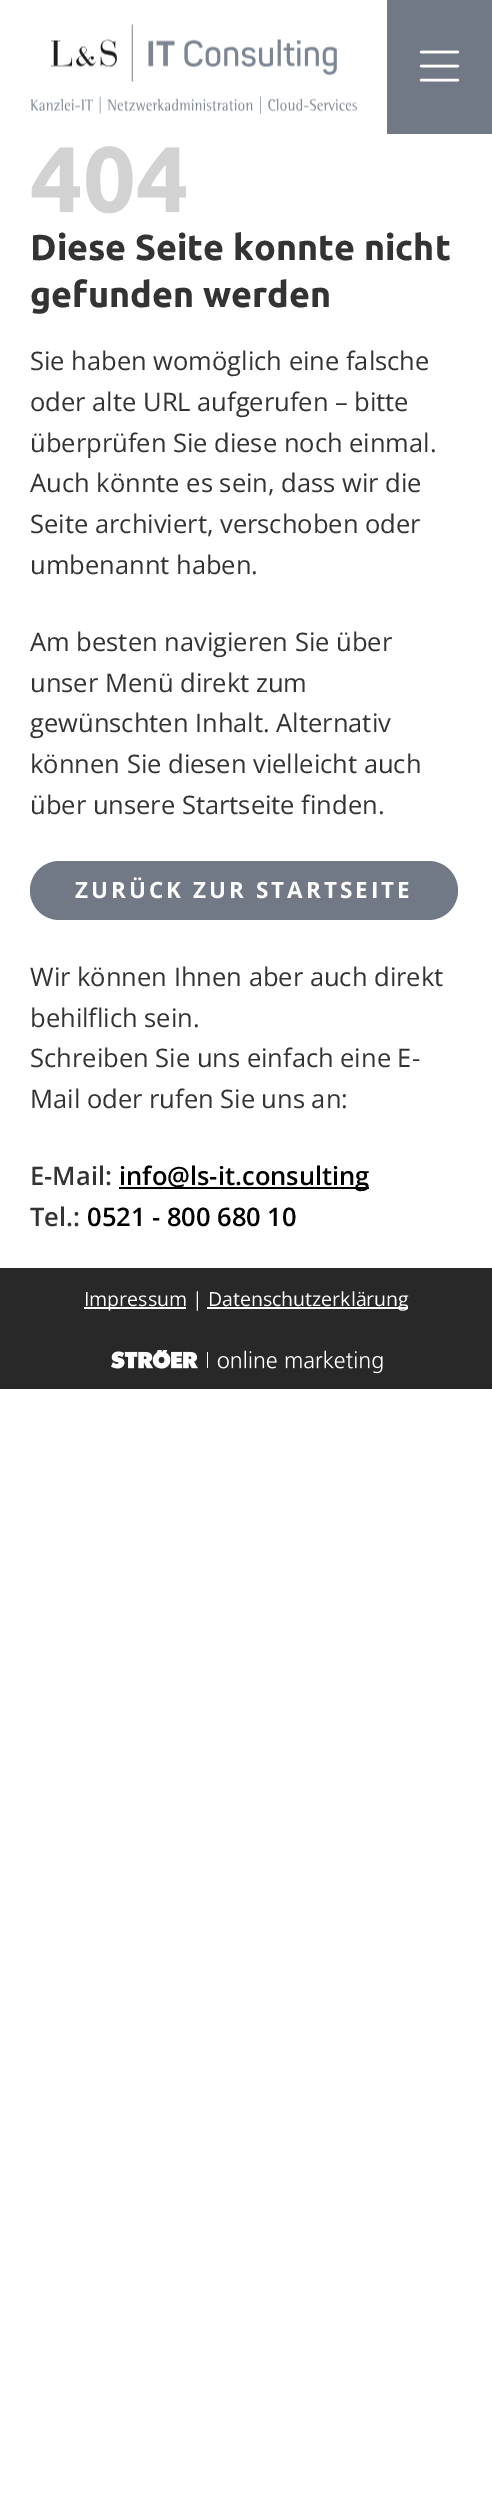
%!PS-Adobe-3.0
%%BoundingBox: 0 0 492 2501
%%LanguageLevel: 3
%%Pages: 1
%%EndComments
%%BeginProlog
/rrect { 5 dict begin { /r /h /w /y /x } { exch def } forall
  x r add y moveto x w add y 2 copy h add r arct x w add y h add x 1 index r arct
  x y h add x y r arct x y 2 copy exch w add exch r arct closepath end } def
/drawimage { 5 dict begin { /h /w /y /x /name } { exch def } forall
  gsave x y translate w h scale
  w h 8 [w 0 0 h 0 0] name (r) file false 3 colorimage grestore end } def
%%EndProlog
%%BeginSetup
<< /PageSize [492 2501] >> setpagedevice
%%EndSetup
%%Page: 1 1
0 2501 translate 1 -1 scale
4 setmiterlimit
1 setgray
0 0 492 2501 rectfill
(images/1.raw) 30 24 327 90 drawimage
0.443 0.471 0.525 setrgbcolor
387 0 105 134 rectfill
(images/2.raw) 419 50 41 32 drawimage
30 861 428 59 29.5 rrect fill
0 setgray
119 1187 250 2 rectfill
0.157 setgray
0 1268 492 121 rectfill
1 setgray
84 1307 102 2 rectfill
207 1307 201 2 rectfill
(images/3.raw) 111 1350 272 24 drawimage
/Ubuntu-Bold [93 0 0 -93 0 0] selectfont
0.824 setgray
30 212 moveto (404) show
/Ubuntu-Bold [36 0 0 -36 0 0] selectfont
0.2 setgray
30 260 moveto (Diese Seite konnte nicht) show
30 307 moveto (gefunden werden) show
/OpenSans-Regular [25.5 0 0 -25.5 0 0] selectfont
30 370 moveto (Sie haben womöglich eine falsche) show
30 411 moveto (oder alte URL aufgerufen – bitte) show
30 452 moveto (überprüfen Sie diese noch einmal.) show
30 492 moveto (Auch könnte es sein, dass wir die) show
30 533 moveto (Seite archiviert, verschoben oder) show
30 574 moveto (umbenannt haben.) show
30 651 moveto (Am besten navigieren Sie über) show
30 692 moveto (unser Menü direkt zum) show
30 732 moveto (gewünschten Inhalt. Alternativ) show
30 773 moveto (können Sie diesen vielleicht auch) show
30 814 moveto (über unsere Startseite finden.) show
/OpenSans-Bold [22.5 0 0 -22.5 0 0] selectfont
1 setgray
75 898 moveto 3 0 (ZURÜCK ZUR STARTSEITE) ashow
/OpenSans-Regular [25.5 0 0 -25.5 0 0] selectfont
0.2 setgray
30 986 moveto (Wir können Ihnen aber auch direkt) show
30 1027 moveto (behilflich sein.) show
30 1067 moveto (Schreiben Sie uns einfach eine E-) show
30 1108 moveto (Mail oder rufen Sie uns an:) show
/OpenSans-SemiBold [25.5 0 0 -25.5 0 0] selectfont
30 1185 moveto (E-Mail:) show
0 setgray
119 1185 moveto (info@ls-it.consulting) show
0.2 setgray
30 1226 moveto (Tel.:) show
0 setgray
87 1226 moveto (0521 - 800 680 10) show
/OpenSans-Regular [19.5 0 0 -19.5 0 0] selectfont
1 setgray
84 1306 moveto (Impressum |) show
208 1306 moveto (Datenschutzerklärung) show
showpage
%%EOF
